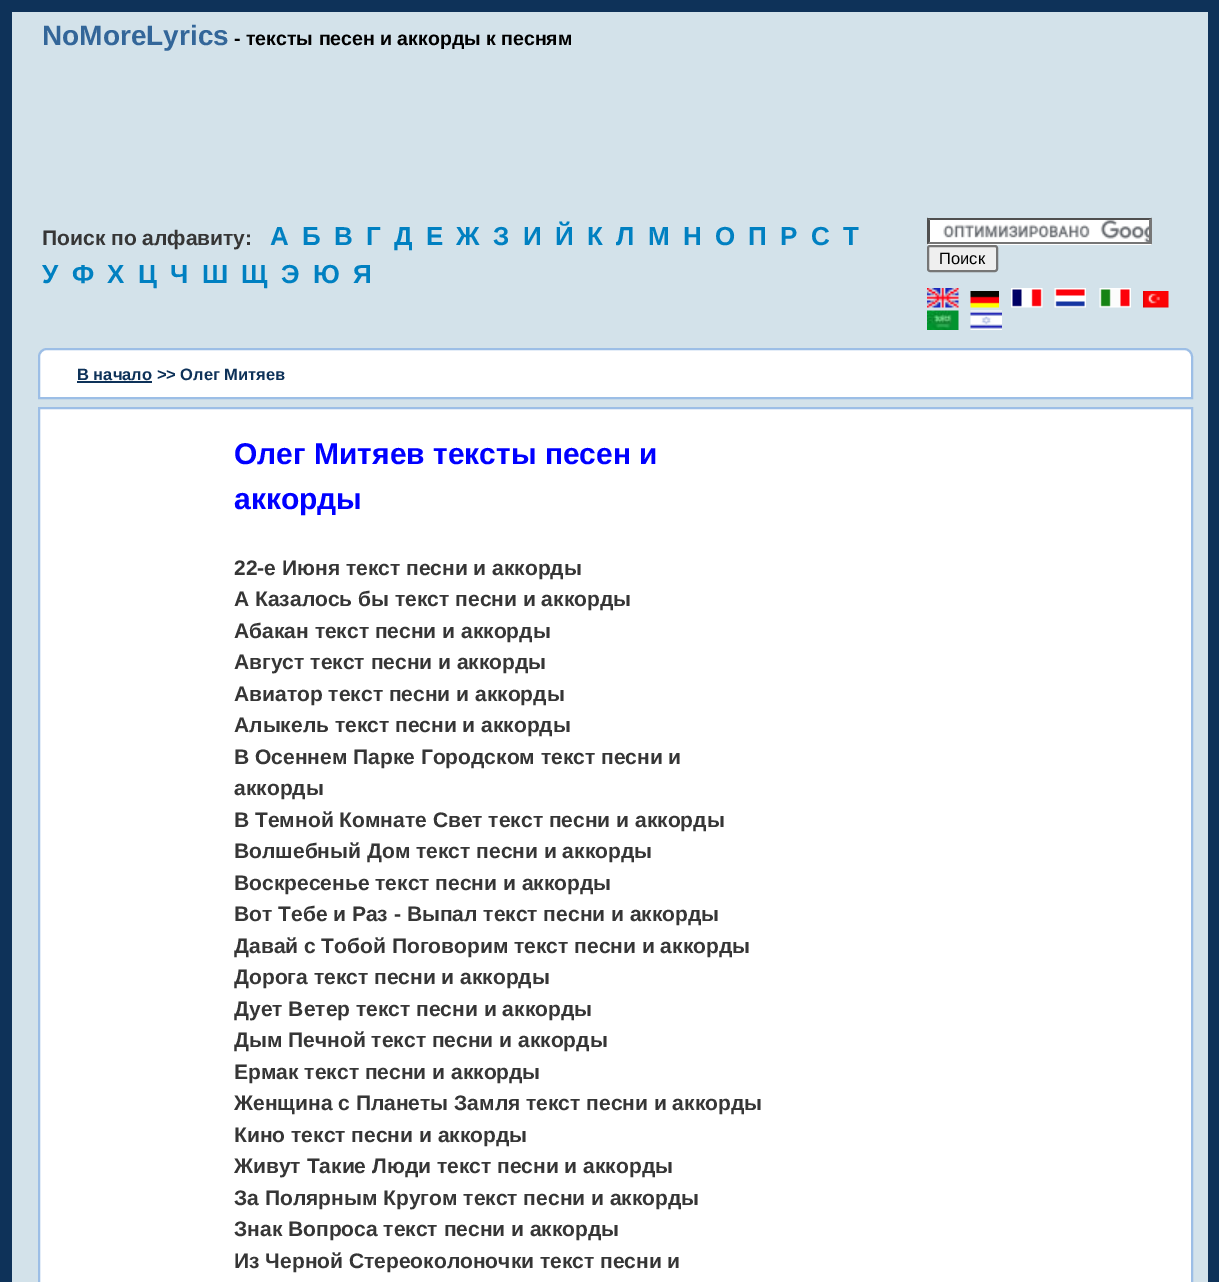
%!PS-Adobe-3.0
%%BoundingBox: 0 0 1219 1282
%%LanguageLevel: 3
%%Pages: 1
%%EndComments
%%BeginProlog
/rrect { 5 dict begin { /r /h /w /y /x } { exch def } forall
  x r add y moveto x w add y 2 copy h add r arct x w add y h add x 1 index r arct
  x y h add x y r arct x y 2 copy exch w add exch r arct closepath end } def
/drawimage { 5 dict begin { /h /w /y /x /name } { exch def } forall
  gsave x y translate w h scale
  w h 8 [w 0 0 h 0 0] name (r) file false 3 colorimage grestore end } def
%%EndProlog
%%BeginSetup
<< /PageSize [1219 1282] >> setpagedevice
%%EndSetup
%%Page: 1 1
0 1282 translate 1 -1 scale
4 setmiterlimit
0.055 0.196 0.349 setrgbcolor
0 0 1219 1282 rectfill
0.827 0.886 0.918 setrgbcolor
12 12 1196 1270 rectfill
1 setgray
927 218 225 27 rectfill
(images/1.raw) 943 220 208 23 drawimage
0.31 setgray
newpath 927 218 moveto 1152 218 lineto 1149 220 lineto 930 220 lineto closepath fill
0.463 setgray
newpath 1152 217.5 moveto 1152 244.5 lineto 1149 241.5 lineto 1149 220.5 lineto closepath fill
newpath 1152 244 moveto 927 244 lineto 930 242 lineto 1149 242 lineto closepath fill
0.31 setgray
newpath 927 244.5 moveto 927 217.5 lineto 930 220.5 lineto 930 241.5 lineto closepath fill
0.937 setgray
928 246 69 25 2 rrect gsave fill grestore
0.463 setgray
2 setlinewidth
stroke
(images/2.raw) 927 288 32 20 drawimage
(images/3.raw) 970 291 29 17 drawimage
(images/4.raw) 1011 288 32 20 drawimage
(images/5.raw) 1054 288 32 20 drawimage
(images/6.raw) 1099 288 32 20 drawimage
(images/7.raw) 1143 291 26 17 drawimage
(images/8.raw) 927 310 32 20 drawimage
(images/9.raw) 970 310 32 20 drawimage
1 setgray
newpath 47 349 moveto 1184 349 lineto 1188.5 349 1192 352.5 1192 357 curveto 1192 398 lineto 39 398 lineto 39 357 lineto 39 352.5 42.5 349 47 349 curveto closepath gsave fill grestore
0.612 0.745 0.902 setrgbcolor
stroke
0.055 0.196 0.349 setrgbcolor
77 381 75 2 rectfill
1 setgray
newpath 39 408 moveto 1192 408 lineto 1192 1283 lineto 39 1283 lineto closepath gsave fill grestore
0.612 0.745 0.902 setrgbcolor
stroke
/LiberationSans-Bold [28 0 0 -28 0 0] selectfont
0.2 0.4 0.6 setrgbcolor
42 45 moveto (NoMoreLyrics) show
/LiberationSans-Bold [19.5 0 0 -19.5 0 0] selectfont
0 setgray
234 45 moveto (- тексты песен и аккорды к песням) show
/LiberationSans-Bold [21 0 0 -21 0 0] selectfont
0.212 setgray
42 245 moveto (Поиск по алфавиту:) show
/LiberationSans-Bold [26 0 0 -26 0 0] selectfont
0 0.502 0.757 setrgbcolor
270 245 moveto 8 0 (А) ashow
302 245 moveto 8 0 (Б) ashow
334 245 moveto 8 0 (В) ashow
366 245 moveto 8 0 (Г) ashow
394 245 moveto 8 0 (Д) ashow
426 245 moveto 8 0 (Е) ashow
456 245 moveto 8 0 (Ж) ashow
493 245 moveto 8 0 (З) ashow
523 245 moveto 8 0 (И) ashow
555 245 moveto 8 0 (Й) ashow
587 245 moveto 8 0 (К) ashow
616 245 moveto 8 0 (Л) ashow
648 245 moveto 8 0 (М) ashow
683 245 moveto 8 0 (Н) ashow
715 245 moveto 8 0 (О) ashow
748 245 moveto 8 0 (П) ashow
780 245 moveto 8 0 (Р) ashow
811 245 moveto 8 0 (С) ashow
843 245 moveto 8 0 (Т) ashow
42 283 moveto 8 0 (У) ashow
72 283 moveto 8 0 (Ф) ashow
107 283 moveto 8 0 (Х) ashow
138 283 moveto 8 0 (Ц) ashow
170 283 moveto 8 0 (Ч) ashow
202 283 moveto 8 0 (Ш) ashow
241 283 moveto 8 0 (Щ) ashow
281 283 moveto 8 0 (Э) ashow
313 283 moveto 8 0 (Ю) ashow
353 283 moveto 8 0 (Я) ashow
/LiberationSans-Regular [16.5 0 0 -16.5 0 0] selectfont
0 setgray
939 264 moveto (Поиск) show
/LiberationSans-Bold [16.5 0 0 -16.5 0 0] selectfont
0.055 0.196 0.349 setrgbcolor
77 380 moveto (В начало >> Олег Митяев) show
/LiberationSans-Bold [30 0 0 -30 0 0] selectfont
0 0 1 setrgbcolor
234 464 moveto (Олег Митяев тексты песен и) show
234 509 moveto (аккорды) show
/LiberationSans-Bold [21 0 0 -21 0 0] selectfont
0.212 setgray
234 575 moveto (22-е Июня текст песни и аккорды) show
234 606 moveto (А Казалось бы текст песни и аккорды) show
234 638 moveto (Абакан текст песни и аккорды) show
234 669 moveto (Август текст песни и аккорды) show
234 701 moveto (Авиатор текст песни и аккорды) show
234 732 moveto (Алыкель текст песни и аккорды) show
234 764 moveto (В Осеннем Парке Городском текст песни и) show
234 795 moveto (аккорды) show
234 827 moveto (В Темной Комнате Свет текст песни и аккорды) show
234 858 moveto (Волшебный Дом текст песни и аккорды) show
234 890 moveto (Воскресенье текст песни и аккорды) show
234 921 moveto (Вот Тебе и Раз - Выпал текст песни и аккорды) show
234 953 moveto (Давай с Тобой Поговорим текст песни и аккорды) show
234 984 moveto (Дорога текст песни и аккорды) show
234 1016 moveto (Дует Ветер текст песни и аккорды) show
234 1047 moveto (Дым Печной текст песни и аккорды) show
234 1079 moveto (Ермак текст песни и аккорды) show
234 1110 moveto (Женщина с Планеты Замля текст песни и аккорды) show
234 1142 moveto (Кино текст песни и аккорды) show
234 1173 moveto (Живут Такие Люди текст песни и аккорды) show
234 1205 moveto (За Полярным Кругом текст песни и аккорды) show
234 1236 moveto (Знак Вопроса текст песни и аккорды) show
234 1268 moveto (Из Черной Стереоколоночки текст песни и) show
showpage
%%EOF
